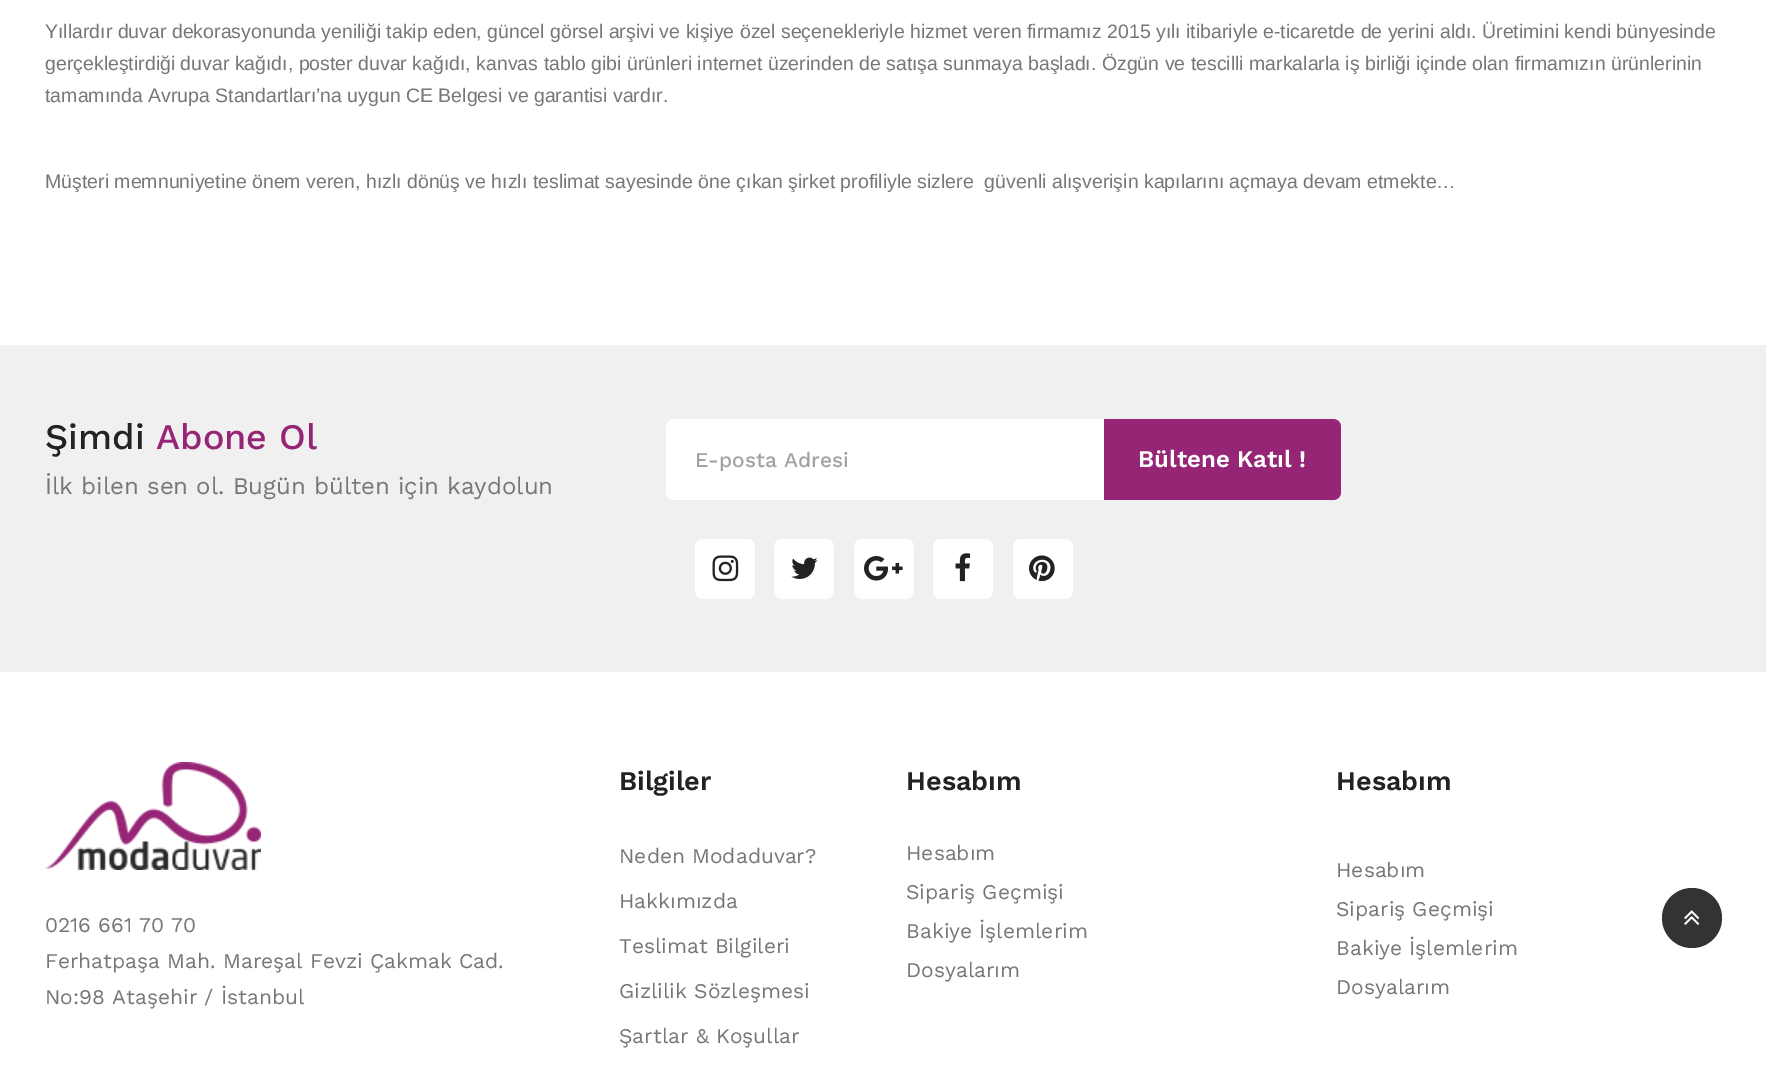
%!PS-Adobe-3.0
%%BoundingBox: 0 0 1766 1068
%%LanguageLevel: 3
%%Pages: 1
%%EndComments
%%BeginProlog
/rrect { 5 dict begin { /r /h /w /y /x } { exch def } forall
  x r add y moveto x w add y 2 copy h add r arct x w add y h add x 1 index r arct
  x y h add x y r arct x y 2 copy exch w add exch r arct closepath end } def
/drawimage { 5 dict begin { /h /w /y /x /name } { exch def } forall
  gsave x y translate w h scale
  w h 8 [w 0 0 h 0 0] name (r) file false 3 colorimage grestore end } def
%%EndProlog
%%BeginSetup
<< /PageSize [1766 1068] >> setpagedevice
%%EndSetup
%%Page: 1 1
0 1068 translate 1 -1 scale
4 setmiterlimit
1 setgray
0 0 1766 1068 rectfill
0.941 setgray
0 345 1766 327 rectfill
1 setgray
666 419 675 81 8 rrect fill
0.588 0.145 0.463 setrgbcolor
newpath 1104 419 moveto 1333 419 lineto 1337.5 419 1341 422.5 1341 427 curveto 1341 492 lineto 1341 496.5 1337.5 500 1333 500 curveto 1104 500 lineto closepath fill
1 setgray
695 539 60 60 8 rrect fill
(images/1.raw) 712 555 27 27 drawimage
774 539 60 60 8 rrect fill
(images/2.raw) 791 557 27 22 drawimage
854 539 60 60 8 rrect fill
(images/3.raw) 864 556 39 25 drawimage
933 539 60 60 8 rrect fill
(images/4.raw) 955 553 16 29 drawimage
1013 539 60 60 8 rrect fill
(images/5.raw) 1029 555 26 27 drawimage
(images/6.raw) 45 762 216 108 drawimage
0.2 setgray
newpath 1692 918 30 0 360 arc closepath fill
(images/7.raw) 1684 910 16 15 drawimage
/LiberationSans-Regular [19.5 0 0 -19.5 0 0] selectfont
0.467 setgray
45 38 moveto (Yıllardır duvar dekorasyonunda yeniliği takip eden, güncel görsel arşivi ve kişiye özel seçenekleriyle hizmet veren firmamız 2015 yılı itibariyle e-ticaretde de yerini aldı. Üretimini kendi bünyesinde) show
45 70 moveto (gerçekleştirdiği duvar kağıdı, poster duvar kağıdı, kanvas tablo gibi ürünleri internet üzerinden de satışa sunmaya başladı. Özgün ve tescilli markalarla iş birliği içinde olan firmamızın ürünlerinin) show
45 102 moveto (tamamında Avrupa Standartları’na uygun CE Belgesi ve garantisi vardır.) show
45 188 moveto (Müşteri memnuniyetine önem veren, hızlı dönüş ve hızlı teslimat sayesinde öne çıkan şirket profiliyle sizlere  güvenli alışverişin kapılarını açmaya devam etmekte…) show
/WorkSans-Medium [36 0 0 -36 0 0] selectfont
0.133 setgray
45 449 moveto (Şimdi) show
0.588 0.145 0.463 setrgbcolor
156 449 moveto (Abone Ol) show
/WorkSans-Regular [24 0 0 -24 0 0] selectfont
0.467 setgray
45 494 moveto (İlk bilen sen ol. Bugün bülten için kaydolun) show
gsave
696 447 416 24 rectclip
/WorkSans-Medium [21 0 0 -21 0 0] selectfont
0.635 setgray
695 467 moveto (E-posta Adresi) show
grestore
/WorkSans-SemiBold [24 0 0 -24 0 0] selectfont
1 setgray
1138 467 moveto (Bültene Katıl !) show
/WorkSans-Regular [21 0 0 -21 0 0] selectfont
0.467 setgray
45 932 moveto (0216 661 70 70) show
45 968 moveto (Ferhatpaşa Mah. Mareşal Fevzi Çakmak Cad.) show
45 1004 moveto (No:98 Ataşehir / İstanbul) show
/WorkSans-SemiBold [27 0 0 -27 0 0] selectfont
0.133 setgray
619 790 moveto (Bilgiler) show
/WorkSans-Regular [21 0 0 -21 0 0] selectfont
0.467 setgray
619 863 moveto (Neden Modaduvar?) show
619 908 moveto (Hakkımızda) show
619 953 moveto (Teslimat Bilgileri) show
619 998 moveto (Gizlilik Sözleşmesi) show
619 1043 moveto (Şartlar & Koşullar) show
/WorkSans-SemiBold [27 0 0 -27 0 0] selectfont
0.133 setgray
906 790 moveto (Hesabım) show
/WorkSans-Regular [21 0 0 -21 0 0] selectfont
0.467 setgray
906 860 moveto (Hesabım) show
906 899 moveto (Sipariş Geçmişi) show
906 938 moveto (Bakiye İşlemlerim) show
906 977 moveto (Dosyalarım) show
/WorkSans-SemiBold [27 0 0 -27 0 0] selectfont
0.133 setgray
1336 790 moveto (Hesabım) show
/WorkSans-Regular [21 0 0 -21 0 0] selectfont
0.467 setgray
1336 877 moveto (Hesabım) show
1336 916 moveto (Sipariş Geçmişi) show
1336 955 moveto (Bakiye İşlemlerim) show
1336 994 moveto (Dosyalarım) show
showpage
%%EOF
